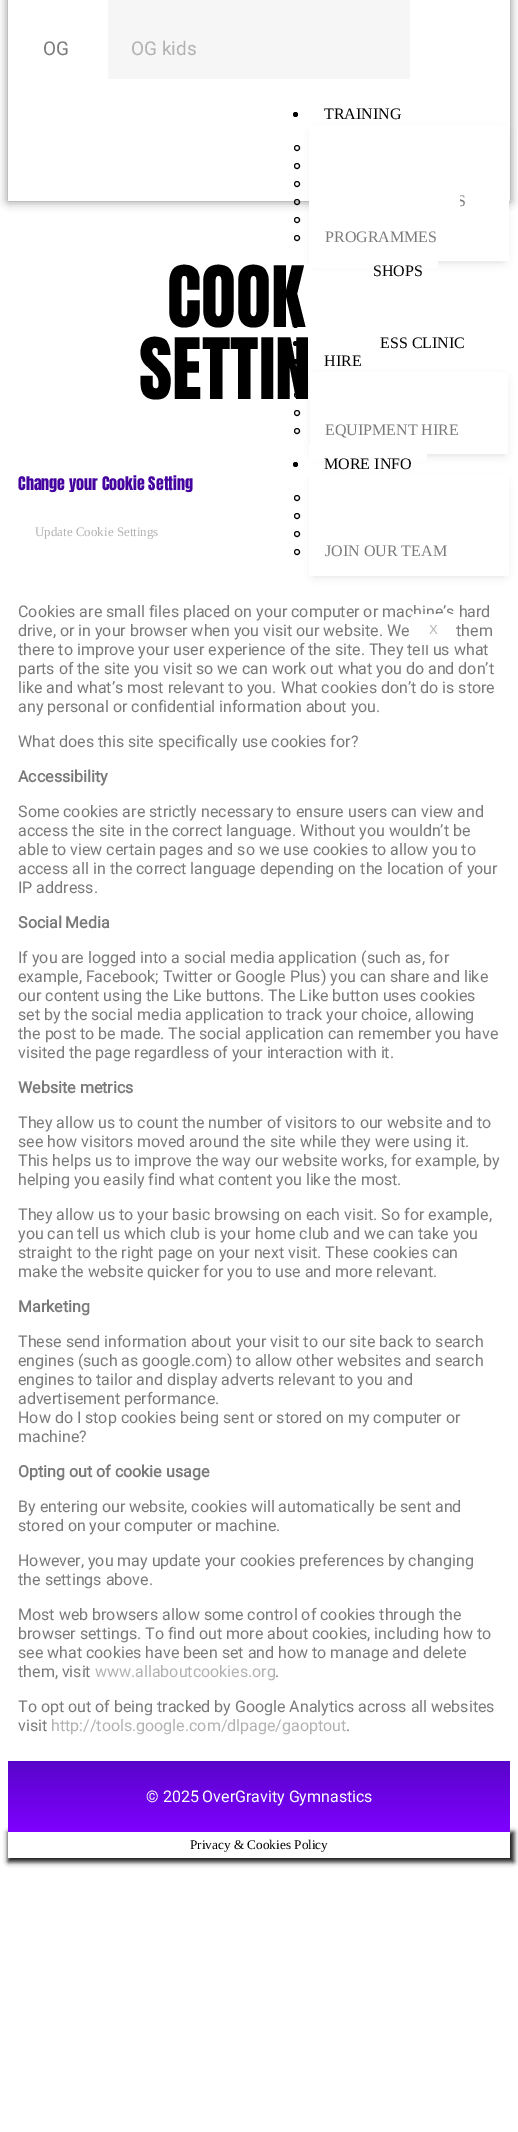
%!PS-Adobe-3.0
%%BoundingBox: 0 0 518 2132
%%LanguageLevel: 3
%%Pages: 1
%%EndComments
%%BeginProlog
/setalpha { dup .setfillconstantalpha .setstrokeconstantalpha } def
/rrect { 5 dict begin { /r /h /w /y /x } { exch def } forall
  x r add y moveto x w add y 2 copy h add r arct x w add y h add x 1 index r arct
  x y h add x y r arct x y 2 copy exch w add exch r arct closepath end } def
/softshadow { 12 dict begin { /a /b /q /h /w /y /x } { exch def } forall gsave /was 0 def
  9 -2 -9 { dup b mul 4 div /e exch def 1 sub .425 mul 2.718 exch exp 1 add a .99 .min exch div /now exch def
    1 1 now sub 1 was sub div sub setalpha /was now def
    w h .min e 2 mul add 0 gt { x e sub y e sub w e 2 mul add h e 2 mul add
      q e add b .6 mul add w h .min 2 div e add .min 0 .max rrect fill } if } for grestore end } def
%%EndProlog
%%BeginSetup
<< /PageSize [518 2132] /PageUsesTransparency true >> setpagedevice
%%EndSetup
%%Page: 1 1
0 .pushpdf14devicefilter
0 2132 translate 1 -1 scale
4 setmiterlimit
1 setgray
0 0 518 2132 rectfill
gsave
newpath 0 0 moveto 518 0 lineto 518 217 lineto 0 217 lineto closepath 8 -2 moveto 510 -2 lineto 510 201 lineto 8 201 lineto closepath eoclip newpath
0 setgray
8 -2 502 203 0 5 0.5 softshadow
grestore
0.965 setgray
108 0 302 79 rectfill
0 setgray
newpath 295.5 114.5 2.5 0 360 arc closepath fill
315 133 188 127 0 5 0.21 softshadow
1 setgray
310 125 198 136 rectfill
508 123 1 139 rectfill
309 123 1 129 rectfill
0 setgray
newpath 297 148 2.5 0 360 arc closepath stroke
newpath 297 166 2.5 0 360 arc closepath stroke
newpath 297 184 2.5 0 360 arc closepath stroke
newpath 297 220 2.5 0 360 arc closepath stroke
newpath 297 202 2.5 0 360 arc closepath stroke
newpath 297 238 2.5 0 360 arc closepath stroke
1 setgray
309 252 129 16 rectfill
0 setgray
newpath 295.5 289.5 2.5 0 360 arc closepath fill
newpath 295.5 325.5 2.5 0 360 arc closepath fill
newpath 295.5 343.5 2.5 0 360 arc closepath fill
newpath 295.5 361.5 2.5 0 360 arc closepath fill
315 380 188 73 0 5 0.21 softshadow
1 setgray
309 378 1 1 rectfill
310 372 198 82 rectfill
0 setgray
newpath 297 395 2.5 0 360 arc closepath stroke
newpath 297 413 2.5 0 360 arc closepath stroke
newpath 297 431 2.5 0 360 arc closepath stroke
newpath 295.5 464.5 2.5 0 360 arc closepath fill
1 setgray
309 445 103 16 rectfill
412 454 15 7 rectfill
gsave
newpath 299 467 moveto 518 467 lineto 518 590 lineto 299 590 lineto closepath 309 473 moveto 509 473 lineto 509 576 lineto 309 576 lineto closepath eoclip newpath
0 setgray
315 483 188 91 0 5 0.21 softshadow
grestore
0 setgray
newpath 297 498 2.5 0 360 arc closepath stroke
newpath 297 516 2.5 0 360 arc closepath stroke
newpath 297 534 2.5 0 360 arc closepath stroke
newpath 297 552 2.5 0 360 arc closepath stroke
gsave
newpath 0 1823 moveto 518 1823 lineto 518 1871 lineto 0 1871 lineto closepath 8 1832 moveto 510 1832 lineto 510 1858 lineto 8 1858 lineto closepath eoclip newpath
0.086 setgray
8 1832 506 30 0 2.5 1 softshadow
grestore
gsave newpath 8 1761 moveto 510 1761 lineto 510 1832 lineto 8 1832 lineto closepath clip newpath
<< /ShadingType 2 /ColorSpace /DeviceRGB /Coords [259 1761 259 1832] /Extend [true true] /Function << /FunctionType 2 /Domain [0 1] /C0 [0.345 0.024 0.792] /C1 [0.498 0 1] /N 1 >> >> shfill grestore
/Roboto-Regular [19 0 0 -19 0 0] selectfont
0.478 setgray
43 55 moveto (OG) show
0.698 setgray
131 55 moveto (OG kids) show
/LiberationSerif-Regular [16 0 0 -16 0 0] selectfont
0 setgray
324 119 moveto (TRAINING) show
0.478 setgray
457 206 moveto (S) show
1 setgray
458 195 2 11 rectfill
0.478 setgray
325 242 moveto (PROGRAMMES) show
0 setgray
373 276 moveto (SHOPS) show
1 setgray
373 273 1 3 rectfill
0 setgray
380 348 moveto (ESS CLINIC) show
324 366 moveto (HIRE) show
0.478 setgray
325 435 moveto (EQUIPMENT HIRE) show
0 setgray
324 469 moveto (MORE INFO) show
0.478 setgray
325 556 moveto (JOIN OUR TEAM) show
/Anton-Regular [72 0 0 -72 0 0] selectfont
0 setgray
167 327 moveto (COOK) show
139 399 moveto (SETTIN) show
/Anton-Regular [16 0 0 -16 0 0] selectfont
0.267 0.008 0.624 setrgbcolor
18 490 moveto (Change your Cookie Setting) show
/LiberationSerif-Regular [13 0 0 -13 0 0] selectfont
0.698 setgray
35 536 moveto (Update Cookie Settings) show
/Roboto-Regular [16 0 0 -16 0 0] selectfont
0.478 setgray
18 617 moveto (Cookies are small files placed on your computer or machine’s hard) show
18 636 moveto (drive, or in your browser when you visit our website. We) show
456 636 moveto (them) show
18 655 moveto (there to improve your user experience of the site. They tell us what) show
1 setgray
411 614 45 31 3 rrect fill
/LiberationSans-Regular [13.25 0 0 -13.25 0 0] selectfont
0.698 setgray
429 634 moveto (X) show
/Roboto-Regular [16 0 0 -16 0 0] selectfont
0.478 setgray
18 674 moveto (parts of the site you visit so we can work out what you do and don’t) show
18 693 moveto (like and what’s most relevant to you. What cookies don’t do is store) show
18 712 moveto (any personal or confidential information about you.) show
18 747 moveto (What does this site specifically use cookies for?) show
/Roboto-Bold [16 0 0 -16 0 0] selectfont
18 782 moveto (Accessibility) show
/Roboto-Regular [16 0 0 -16 0 0] selectfont
18 817 moveto (Some cookies are strictly necessary to ensure users can view and) show
18 836 moveto (access the site in the correct language. Without you wouldn’t be) show
18 855 moveto (able to view certain pages and so we use cookies to allow you to) show
18 874 moveto (access all in the correct language depending on the location of your) show
18 893 moveto (IP address.) show
/Roboto-Bold [16 0 0 -16 0 0] selectfont
18 928 moveto (Social Media) show
/Roboto-Regular [16 0 0 -16 0 0] selectfont
18 963 moveto (If you are logged into a social media application \(such as, for) show
18 982 moveto (example, Facebook; Twitter or Google Plus\) you can share and like) show
18 1001 moveto (our content using the Like buttons. The Like button uses cookies) show
18 1020 moveto (set by the social media application to track your choice, allowing) show
18 1039 moveto (the post to be made. The social application can remember you have) show
18 1058 moveto (visited the page regardless of your interaction with it.) show
/Roboto-Bold [16 0 0 -16 0 0] selectfont
18 1093 moveto (Website metrics) show
/Roboto-Regular [16 0 0 -16 0 0] selectfont
18 1128 moveto (They allow us to count the number of visitors to our website and to) show
18 1147 moveto (see how visitors moved around the site while they were using it.) show
18 1166 moveto (This helps us to improve the way our website works, for example, by) show
18 1185 moveto (helping you easily find what content you like the most.) show
18 1220 moveto (They allow us to your basic browsing on each visit. So for example,) show
18 1239 moveto (you can tell us which club is your home club and we can take you) show
18 1258 moveto (straight to the right page on your next visit. These cookies can) show
18 1277 moveto (make the website quicker for you to use and more relevant.) show
/Roboto-Bold [16 0 0 -16 0 0] selectfont
18 1312 moveto (Marketing) show
/Roboto-Regular [16 0 0 -16 0 0] selectfont
18 1347 moveto (These send information about your visit to our site back to search) show
18 1366 moveto (engines \(such as google.com\) to allow other websites and search) show
18 1385 moveto (engines to tailor and display adverts relevant to you and) show
18 1404 moveto (advertisement performance.) show
18 1423 moveto (How do I stop cookies being sent or stored on my computer or) show
18 1442 moveto (machine?) show
/Roboto-Bold [16 0 0 -16 0 0] selectfont
18 1477 moveto (Opting out of cookie usage) show
/Roboto-Regular [16 0 0 -16 0 0] selectfont
18 1512 moveto (By entering our website, cookies will automatically be sent and) show
18 1531 moveto (stored on your computer or machine.) show
18 1566 moveto (However, you may update your cookies preferences by changing) show
18 1585 moveto (the settings above.) show
18 1620 moveto (Most web browsers allow some control of cookies through the) show
18 1639 moveto (browser settings. To find out more about cookies, including how to) show
18 1658 moveto (see what cookies have been set and how to manage and delete) show
18 1677 moveto (them, visit) show
0.698 setgray
95 1677 moveto (www.allaboutcookies.org) show
0.478 setgray
275 1677 moveto (.) show
18 1712 moveto (To opt out of being tracked by Google Analytics across all websites) show
18 1731 moveto (visit) show
0.698 setgray
51 1731 moveto (http://tools.google.com/dlpage/gaoptout) show
0.478 setgray
346 1731 moveto (.) show
1 setgray
146 1802 moveto (© 2025 OverGravity Gymnastics) show
/LiberationSerif-Regular [13.25 0 0 -13.25 0 0] selectfont
0 setgray
190 1849 moveto (Privacy & Cookies Policy) show
.poppdf14devicefilter showpage
%%EOF
